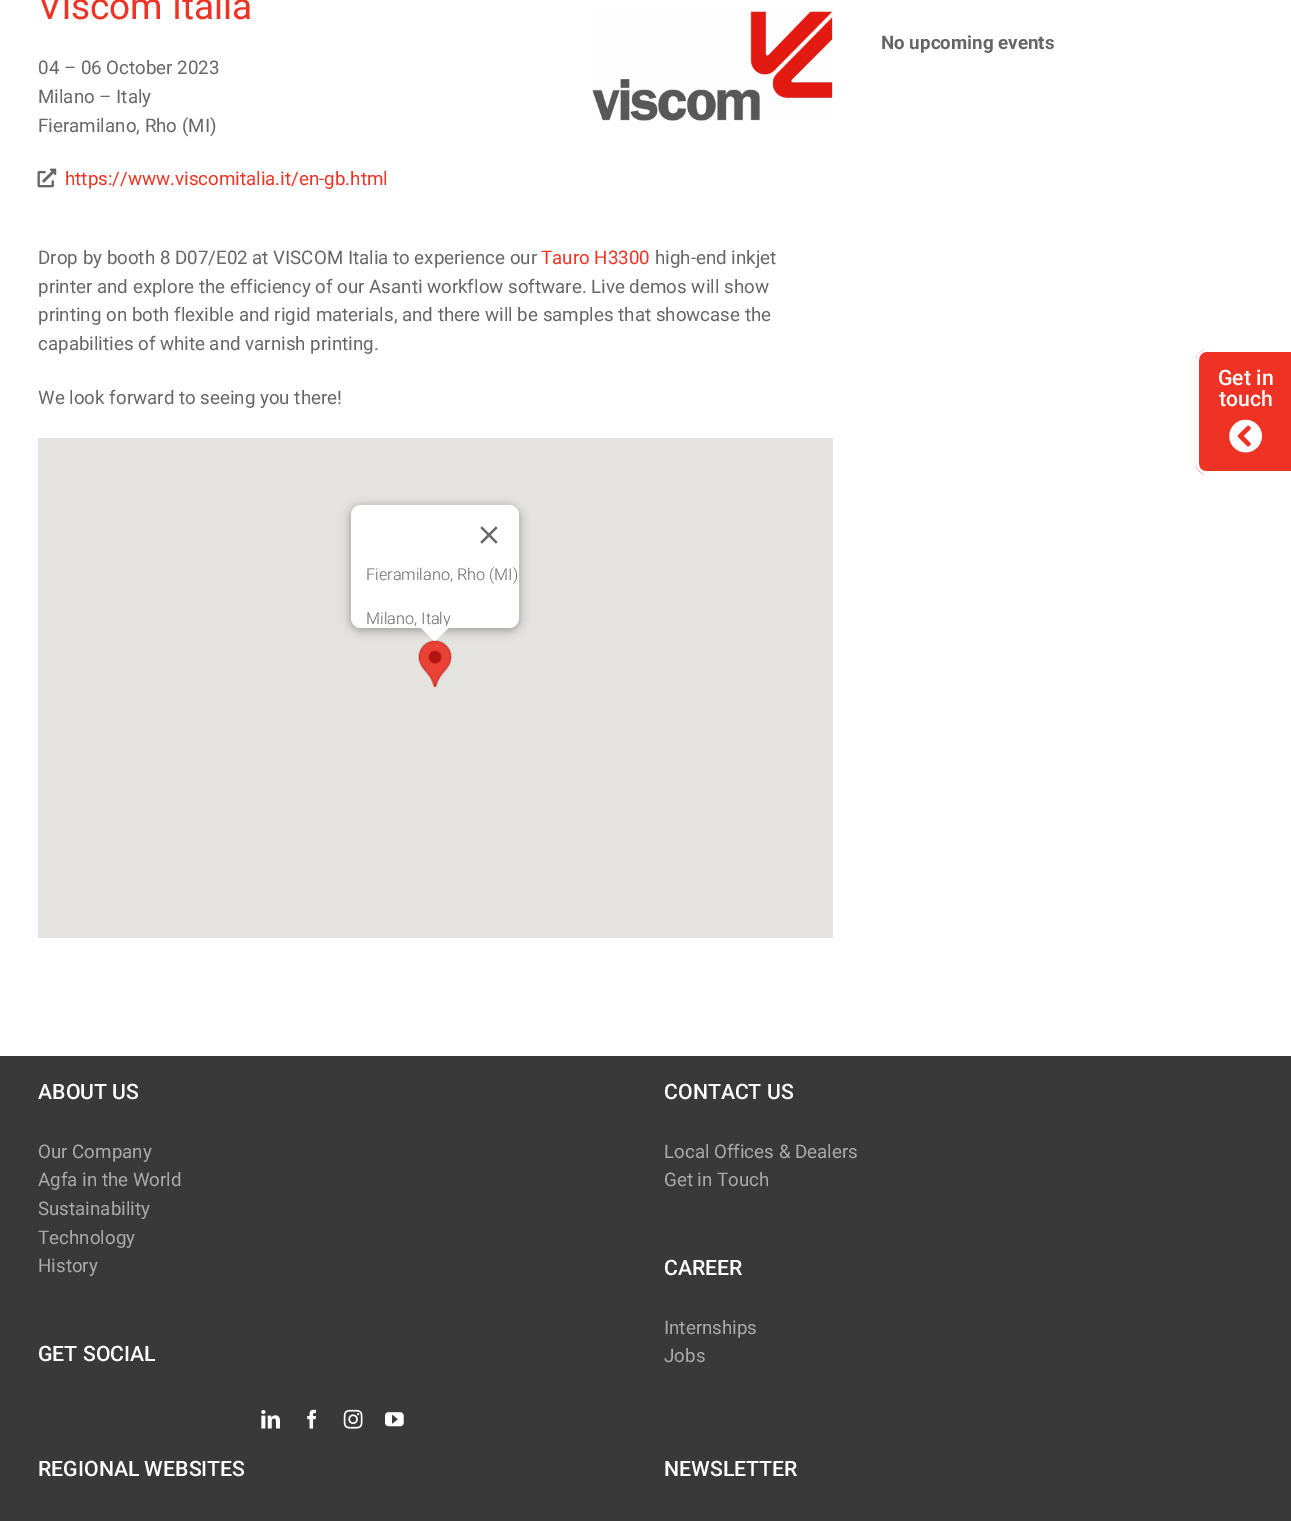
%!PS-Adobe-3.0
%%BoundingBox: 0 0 1291 1521
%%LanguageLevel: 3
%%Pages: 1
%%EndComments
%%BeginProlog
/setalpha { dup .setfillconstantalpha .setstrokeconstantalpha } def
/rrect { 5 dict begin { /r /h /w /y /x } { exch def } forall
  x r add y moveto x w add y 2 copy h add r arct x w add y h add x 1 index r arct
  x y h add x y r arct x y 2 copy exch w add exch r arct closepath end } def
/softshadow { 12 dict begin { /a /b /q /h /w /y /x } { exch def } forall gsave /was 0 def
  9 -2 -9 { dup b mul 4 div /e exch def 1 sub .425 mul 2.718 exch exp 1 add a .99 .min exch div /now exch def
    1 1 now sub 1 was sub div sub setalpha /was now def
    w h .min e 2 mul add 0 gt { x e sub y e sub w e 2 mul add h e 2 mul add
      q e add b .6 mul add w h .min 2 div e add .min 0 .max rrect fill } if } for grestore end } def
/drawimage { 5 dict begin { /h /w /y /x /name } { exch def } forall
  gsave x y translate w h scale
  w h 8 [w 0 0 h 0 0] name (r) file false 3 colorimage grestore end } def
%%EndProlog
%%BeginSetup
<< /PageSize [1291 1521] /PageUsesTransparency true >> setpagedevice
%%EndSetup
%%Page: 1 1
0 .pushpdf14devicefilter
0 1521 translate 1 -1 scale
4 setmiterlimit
1 setgray
0 0 1291 1521 rectfill
(images/1.raw) 37 168 20 20 drawimage
(images/2.raw) 592 9 241 112 drawimage
0.898 0.89 0.875 setrgbcolor
38 438 795 500 rectfill
(images/4.raw) 418 640 34 47 drawimage
0 setgray
350 506 170 125 11 4.5 0.3 softshadow
1 setgray
351 505 168 123 10 rrect fill
(images/3.raw) 480 526 18 18 drawimage
0.224 setgray
0 1056 1291 465 rectfill
(images/5.raw) 261 1410 19 19 drawimage
(images/6.raw) 307 1409 9 20 drawimage
(images/7.raw) 343 1409 20 20 drawimage
(images/8.raw) 385 1412 19 15 drawimage
0.933 0.196 0.141 setrgbcolor
newpath 1206 350 moveto 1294 350 lineto 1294 474 lineto 1206 474 lineto 1200.5 474 1196 469.5 1196 464 curveto 1196 360 lineto 1196 354.5 1200.5 350 1206 350 curveto closepath fill
1 setgray
newpath 1206 350 moveto 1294 350 lineto 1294 474 lineto 1206 474 lineto 1201 474 1196 469 1196 464 curveto 1196 360 lineto 1196 354 1201 350 1206 350 curveto closepath 1206 352 moveto 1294 352 lineto 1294 471 lineto 1206 471 lineto 1202 471 1199 468 1199 464 curveto 1199 360 lineto 1199 356 1202 352 1206 352 curveto closepath eofill
(images/9.raw) 1229 419 33 34 drawimage
/Roboto-Regular [37 0 0 -37 0 0] selectfont
0.933 0.196 0.141 setrgbcolor
38 19 moveto (Viscom Italia) show
/Roboto-Regular [18.75 0 0 -18.75 0 0] selectfont
0.4 setgray
38 74 moveto (04 – 06 October 2023) show
38 103 moveto (Milano – Italy) show
38 132 moveto (Fieramilano, Rho \(MI\)) show
0.933 0.196 0.141 setrgbcolor
65 185 moveto (https://www.viscomitalia.it/en-gb.html) show
0.4 setgray
38 264 moveto (Drop by booth 8 D07/E02 at VISCOM Italia to experience our) show
0.933 0.196 0.141 setrgbcolor
541 264 moveto (Tauro H3300) show
0.4 setgray
655 264 moveto (high-end inkjet) show
38 293 moveto (printer and explore the efficiency of our Asanti workflow software. Live demos will show) show
38 321 moveto (printing on both flexible and rigid materials, and there will be samples that showcase the) show
38 350 moveto (capabilities of white and varnish printing.) show
38 404 moveto (We look forward to seeing you there!) show
/Roboto-Light [16.25 0 0 -16.25 0 0] selectfont
366 580 moveto (Fieramilano, Rho \(MI\)) show
366 624 moveto (Milano, Italy) show
1 setgray
newpath 420 627 moveto 420 626 lineto 450.5 626 lineto 435 641 lineto 434.5 641 lineto closepath fill
/Roboto-Bold [18.75 0 0 -18.75 0 0] selectfont
0.4 setgray
881 49 moveto (No upcoming events) show
/Roboto-Medium [21.25 0 0 -21.25 0 0] selectfont
1 setgray
38 1099 moveto (ABOUT US) show
/Roboto-Regular [18.75 0 0 -18.75 0 0] selectfont
0.667 setgray
38 1158 moveto (Our Company) show
38 1186 moveto (Agfa in the World) show
38 1215 moveto (Sustainability) show
38 1244 moveto (Technology) show
38 1272 moveto (History) show
/Roboto-Medium [21.25 0 0 -21.25 0 0] selectfont
1 setgray
38 1361 moveto (GET SOCIAL) show
664 1099 moveto (CONTACT US) show
/Roboto-Regular [18.75 0 0 -18.75 0 0] selectfont
0.667 setgray
664 1158 moveto (Local Offices & Dealers) show
664 1186 moveto (Get in Touch) show
/Roboto-Medium [21.25 0 0 -21.25 0 0] selectfont
1 setgray
664 1275 moveto (CAREER) show
/Roboto-Regular [18.75 0 0 -18.75 0 0] selectfont
0.667 setgray
664 1334 moveto (Internships) show
664 1362 moveto (Jobs) show
/Roboto-Medium [21.25 0 0 -21.25 0 0] selectfont
1 setgray
38 1476 moveto (REGIONAL WEBSITES) show
664 1476 moveto (NEWSLETTER) show
1218 385 moveto (Get in) show
1219 406 moveto (touch) show
.poppdf14devicefilter showpage
%%EOF
